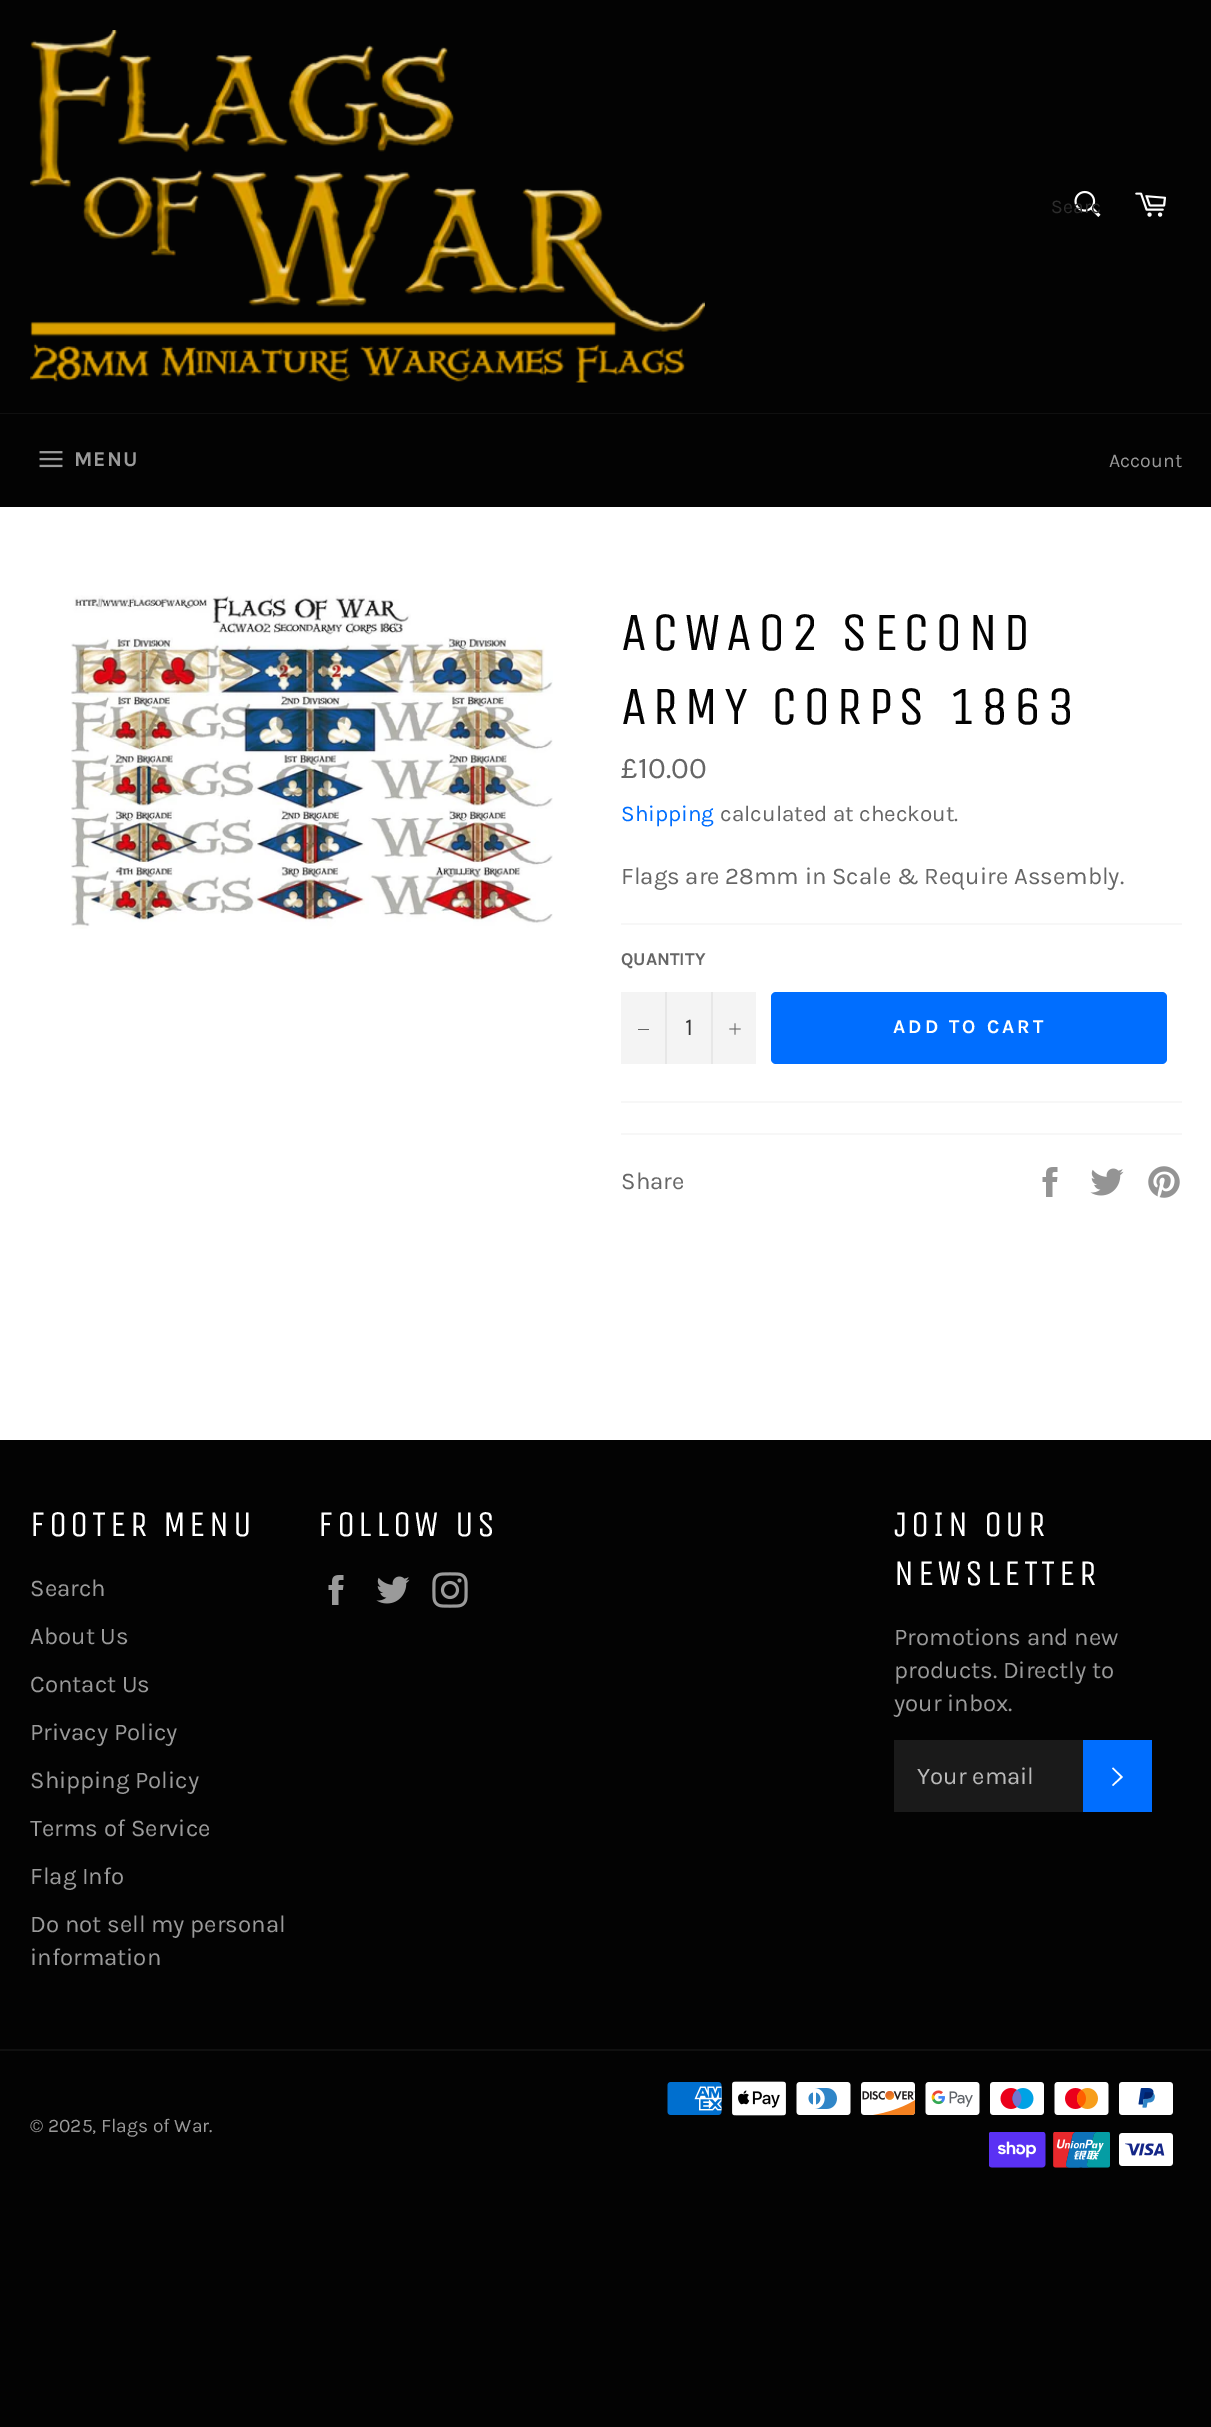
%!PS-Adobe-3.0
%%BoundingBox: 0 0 1211 2427
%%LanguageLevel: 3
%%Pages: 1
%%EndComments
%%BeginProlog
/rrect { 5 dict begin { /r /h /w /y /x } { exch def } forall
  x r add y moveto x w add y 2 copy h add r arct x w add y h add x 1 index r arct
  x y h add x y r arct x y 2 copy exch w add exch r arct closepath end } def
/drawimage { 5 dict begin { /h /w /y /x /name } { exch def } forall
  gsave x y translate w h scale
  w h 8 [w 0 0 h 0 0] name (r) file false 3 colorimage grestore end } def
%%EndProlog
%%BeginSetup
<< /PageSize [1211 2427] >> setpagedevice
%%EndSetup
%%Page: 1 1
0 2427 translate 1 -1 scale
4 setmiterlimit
0.012 setgray
0 0 1211 2427 rectfill
(images/1.raw) 30 30 675 353 drawimage
(images/2.raw) 1074 190 27 27 drawimage
(images/3.raw) 1135 192 31 25 drawimage
0.063 setgray
0 413 1211 1 rectfill
(images/4.raw) 39 451 24 17 drawimage
1 setgray
0 507 1211 933 rectfill
(images/5.raw) 71 595 482 334 drawimage
0.969 setgray
621 923 561 2 rectfill
0.957 setgray
621 992 135 72 rectfill
0.906 setgray
665 992 2 72 rectfill
0.4 setgray
638 1029 11 1 rectfill
0.906 setgray
711 992 2 72 rectfill
(images/6.raw) 729 1023 12 12 drawimage
0 0.431 1 setrgbcolor
771 992 396 72 5 rrect fill
0.969 setgray
621 1101 561 2 rectfill
621 1133 561 2 rectfill
(images/7.raw) 1042 1167 16 30 drawimage
(images/8.raw) 1090 1168 34 28 drawimage
(images/9.raw) 1148 1166 32 32 drawimage
(images/10.raw) 328 1575 16 30 drawimage
(images/11.raw) 376 1576 34 28 drawimage
(images/12.raw) 432 1572 36 36 drawimage
0.102 setgray
894 1740 189 72 rectfill
0 0.431 1 setrgbcolor
1083 1740 69 72 rectfill
1 setgray
newpath 1112 1768.5 moveto 1113 1767.5 lineto 1123 1777 lineto 1113 1786 lineto 1112 1785 lineto 1120.5 1777 lineto closepath fill
0.063 setgray
0 2049 1211 2 rectfill
(images/13.raw) 667 2082 55 33 drawimage
(images/14.raw) 732 2081 54 35 drawimage
(images/15.raw) 796 2082 55 33 drawimage
(images/16.raw) 861 2082 55 33 drawimage
(images/17.raw) 925 2082 55 33 drawimage
(images/18.raw) 990 2082 54 33 drawimage
(images/19.raw) 1054 2082 55 33 drawimage
(images/20.raw) 1119 2082 54 33 drawimage
(images/21.raw) 989 2132 57 36 drawimage
(images/22.raw) 1053 2132 57 36 drawimage
(images/23.raw) 1119 2133 54 33 drawimage
/Karla-Regular [19.5 0 0 -19.5 0 0] selectfont
0.176 setgray
1051 213 moveto (Searc) show
/Karla-Bold [21 0 0 -21 0 0] selectfont
0.604 setgray
74 466 moveto 1 0 (MENU) ashow
/Karla-Regular [19.5 0 0 -19.5 0 0] selectfont
1109 467 moveto (Account) show
/UnicaOne-Regular [54 0 0 -54 0 0] selectfont
0.012 setgray
621 650 moveto 5.4 0 (ACWA02 SECOND) ashow
621 724 moveto 5.4 0 (ARMY CORPS 1863) ashow
/Karla-Regular [30 0 0 -30 0 0] selectfont
0.4 setgray
621 778 moveto (£10.00) show
/Karla-Regular [22.5 0 0 -22.5 0 0] selectfont
0 0.431 1 setrgbcolor
621 821 moveto (Shipping) show
0.4 setgray
720 821 moveto (calculated at checkout.) show
/Karla-Regular [24 0 0 -24 0 0] selectfont
621 884 moveto (Flags are 28mm in Scale & Require Assembly.) show
/Karla-Bold [18 0 0 -18 0 0] selectfont
621 965 moveto (QUANTITY) show
/Karla-Regular [24 0 0 -24 0 0] selectfont
0.2 setgray
685 1035 moveto (1) show
/Karla-Bold [19.5 0 0 -19.5 0 0] selectfont
1 setgray
893 1033 moveto 3 0 (ADD TO CART) ashow
/Karla-Regular [24 0 0 -24 0 0] selectfont
0.4 setgray
621 1189 moveto (Share) show
/UnicaOne-Regular [36 0 0 -36 0 0] selectfont
1 setgray
30 1536 moveto 3.6 0 (FOOTER MENU) ashow
/Karla-Regular [24 0 0 -24 0 0] selectfont
0.604 setgray
30 1596 moveto (Search) show
30 1644 moveto (About Us) show
30 1692 moveto (Contact Us) show
30 1740 moveto (Privacy Policy) show
30 1788 moveto (Shipping Policy) show
30 1836 moveto (Terms of Service) show
30 1884 moveto (Flag Info) show
30 1932 moveto (Do not sell my personal) show
30 1965 moveto (information) show
/UnicaOne-Regular [36 0 0 -36 0 0] selectfont
1 setgray
318 1536 moveto 3.6 0 (FOLLOW US) ashow
894 1536 moveto 3.6 0 (JOIN OUR) ashow
894 1585 moveto 3.6 0 (NEWSLETTER) ashow
/Karla-Regular [24 0 0 -24 0 0] selectfont
0.604 setgray
894 1645 moveto (Promotions and new) show
894 1678 moveto (products. Directly to) show
894 1711 moveto (your inbox.) show
0.729 setgray
917 1784 moveto (Your email) show
/Karla-Regular [19.25 0 0 -19.25 0 0] selectfont
0.604 setgray
30 2132 moveto (© 2025, Flags of War.) show
showpage
%%EOF
